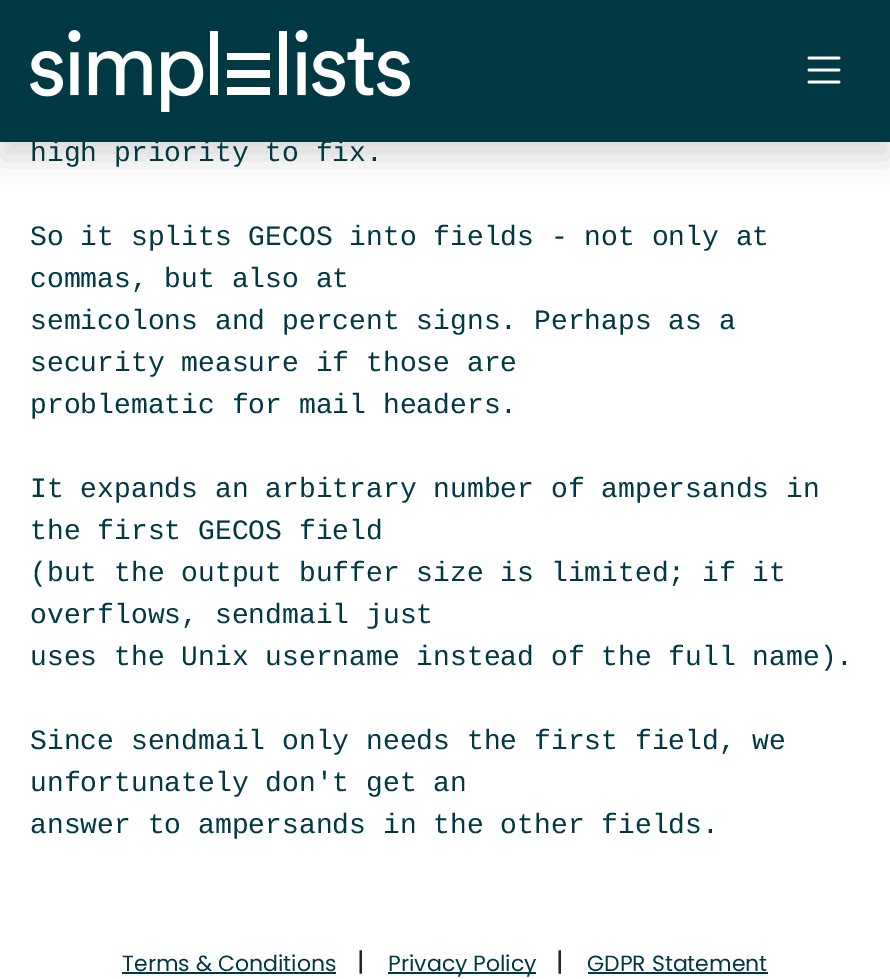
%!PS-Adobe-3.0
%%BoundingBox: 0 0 890 979
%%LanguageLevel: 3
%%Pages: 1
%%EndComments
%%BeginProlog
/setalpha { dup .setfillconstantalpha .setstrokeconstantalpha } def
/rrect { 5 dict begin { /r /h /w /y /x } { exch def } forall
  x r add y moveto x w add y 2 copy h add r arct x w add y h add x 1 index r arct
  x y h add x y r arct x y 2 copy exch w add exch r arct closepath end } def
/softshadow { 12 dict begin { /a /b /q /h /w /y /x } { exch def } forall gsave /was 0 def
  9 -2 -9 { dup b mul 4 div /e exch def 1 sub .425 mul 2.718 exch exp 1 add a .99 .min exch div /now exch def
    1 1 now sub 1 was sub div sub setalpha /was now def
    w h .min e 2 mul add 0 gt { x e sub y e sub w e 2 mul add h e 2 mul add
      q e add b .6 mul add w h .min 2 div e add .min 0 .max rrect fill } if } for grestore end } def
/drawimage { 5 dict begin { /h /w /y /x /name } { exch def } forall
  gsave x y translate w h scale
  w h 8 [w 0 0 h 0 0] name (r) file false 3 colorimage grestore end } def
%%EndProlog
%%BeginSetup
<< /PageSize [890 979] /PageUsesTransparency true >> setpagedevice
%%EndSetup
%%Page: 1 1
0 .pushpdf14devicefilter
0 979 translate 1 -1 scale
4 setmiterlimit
1 setgray
0 0 890 979 rectfill
0 setgray
0 16 890 142 0 15 0.15 softshadow
0 0.224 0.267 setrgbcolor
0 0 890 142 rectfill
(images/1.raw) 30 30 380 82 drawimage
(images/2.raw) 807 56 34 28 drawimage
122 972 214 2 rectfill
388 972 148 2 rectfill
588 972 180 2 rectfill
/LiberationMono-Regular [28 0 0 -28 0 0] selectfont
30 161 moveto (high priority to fix.) show
30 245 moveto (So it splits GECOS into fields - not only at) show
30 287 moveto (commas, but also at) show
30 329 moveto (semicolons and percent signs. Perhaps as a) show
30 371 moveto (security measure if those are) show
30 413 moveto (problematic for mail headers.) show
30 497 moveto (It expands an arbitrary number of ampersands in) show
30 539 moveto (the first GECOS field) show
30 581 moveto (\(but the output buffer size is limited; if it) show
30 623 moveto (overflows, sendmail just) show
30 665 moveto (uses the Unix username instead of the full name\).) show
30 749 moveto (Since sendmail only needs the first field, we) show
30 791 moveto (unfortunately don't get an) show
30 833 moveto (answer to ampersands in the other fields.) show
/Poppins-Regular [22 0 0 -22 0 0] selectfont
122 971 moveto (Terms & Conditions) show
/Poppins-Regular [26 0 0 -26 0 0] selectfont
0.129 0.145 0.161 setrgbcolor
357 971 moveto (|) show
/Poppins-Regular [22 0 0 -22 0 0] selectfont
0 0.224 0.267 setrgbcolor
388 971 moveto (Privacy Policy) show
/Poppins-Regular [26 0 0 -26 0 0] selectfont
0.129 0.145 0.161 setrgbcolor
556 971 moveto (|) show
/Poppins-Regular [22 0 0 -22 0 0] selectfont
0 0.224 0.267 setrgbcolor
587 971 moveto (GDPR Statement) show
.poppdf14devicefilter showpage
%%EOF
